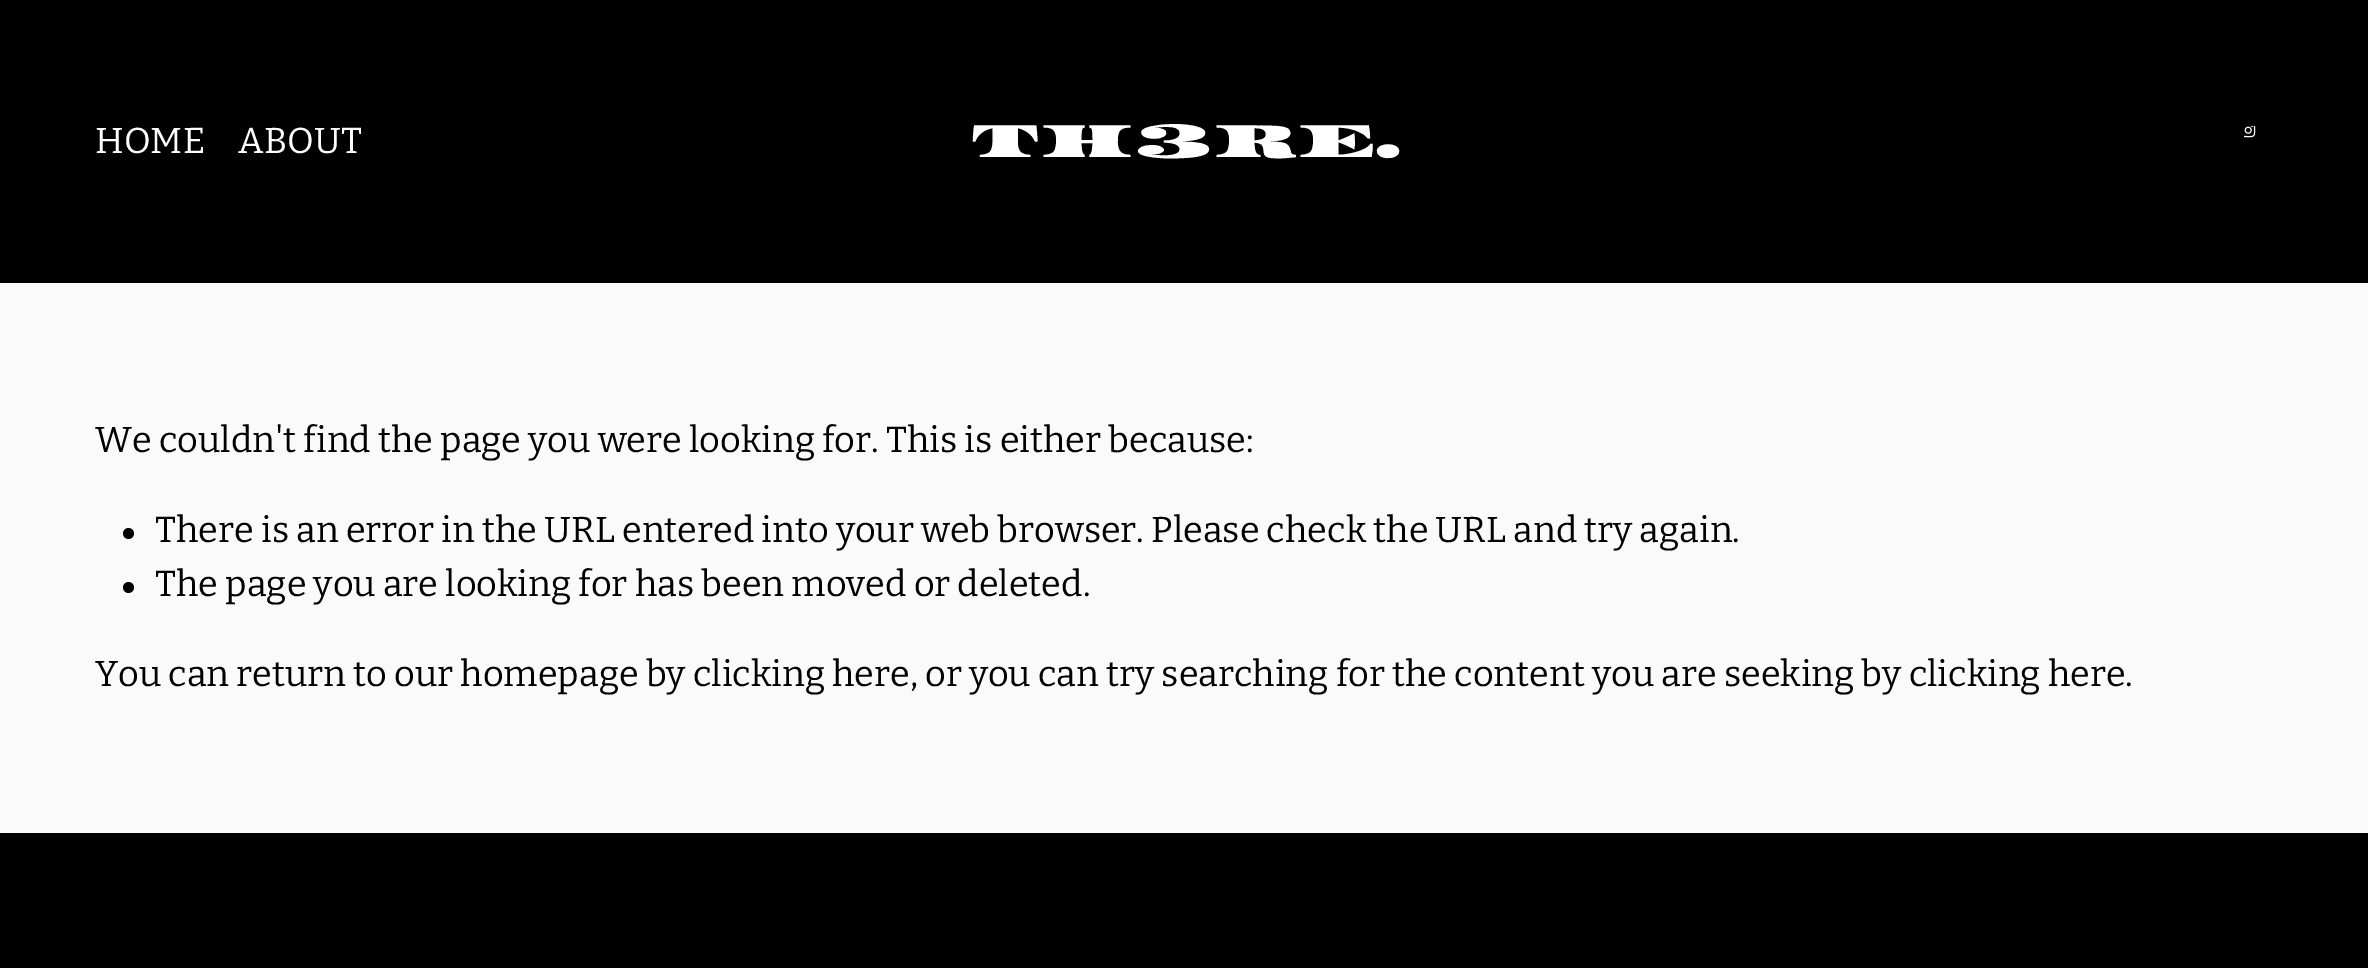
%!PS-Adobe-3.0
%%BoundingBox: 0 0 2368 968
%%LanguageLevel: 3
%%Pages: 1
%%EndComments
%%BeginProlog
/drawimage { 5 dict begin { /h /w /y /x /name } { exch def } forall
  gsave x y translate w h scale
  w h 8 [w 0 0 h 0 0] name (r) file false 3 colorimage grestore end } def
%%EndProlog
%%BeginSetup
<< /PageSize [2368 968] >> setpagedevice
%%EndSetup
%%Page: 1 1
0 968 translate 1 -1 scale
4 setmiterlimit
0.98 setgray
0 0 2368 968 rectfill
0 setgray
0 0 2368 283 rectfill
(images/1.raw) 2244 126 12 12 drawimage
newpath 128.5 533.5 5.5 0 360 arc closepath fill
newpath 128.5 587.5 5.5 0 360 arc closepath fill
0 833 2368 135 rectfill
/Bitter-Regular [36 0 0 -36 0 0] selectfont
1 setgray
95 153 moveto (HOME) show
238 153 moveto (ABOUT) show
/Asset-Regular [50.25 0 0 -50.25 0 0] selectfont
970 157 moveto 0.5 0 (TH3RE.) ashow
/Bitter-Regular [36 0 0 -36 0 0] selectfont
0 setgray
95 452 moveto (We couldn't find the page you were looking for. This is either because:) show
155 542 moveto (There is an error in the URL entered into your web browser. Please check the URL and try again.) show
155 596 moveto (The page you are looking for has been moved or deleted.) show
95 686 moveto (You can return to our homepage by clicking here, or you can try searching for the content you are seeking by clicking here.) show
showpage
%%EOF
